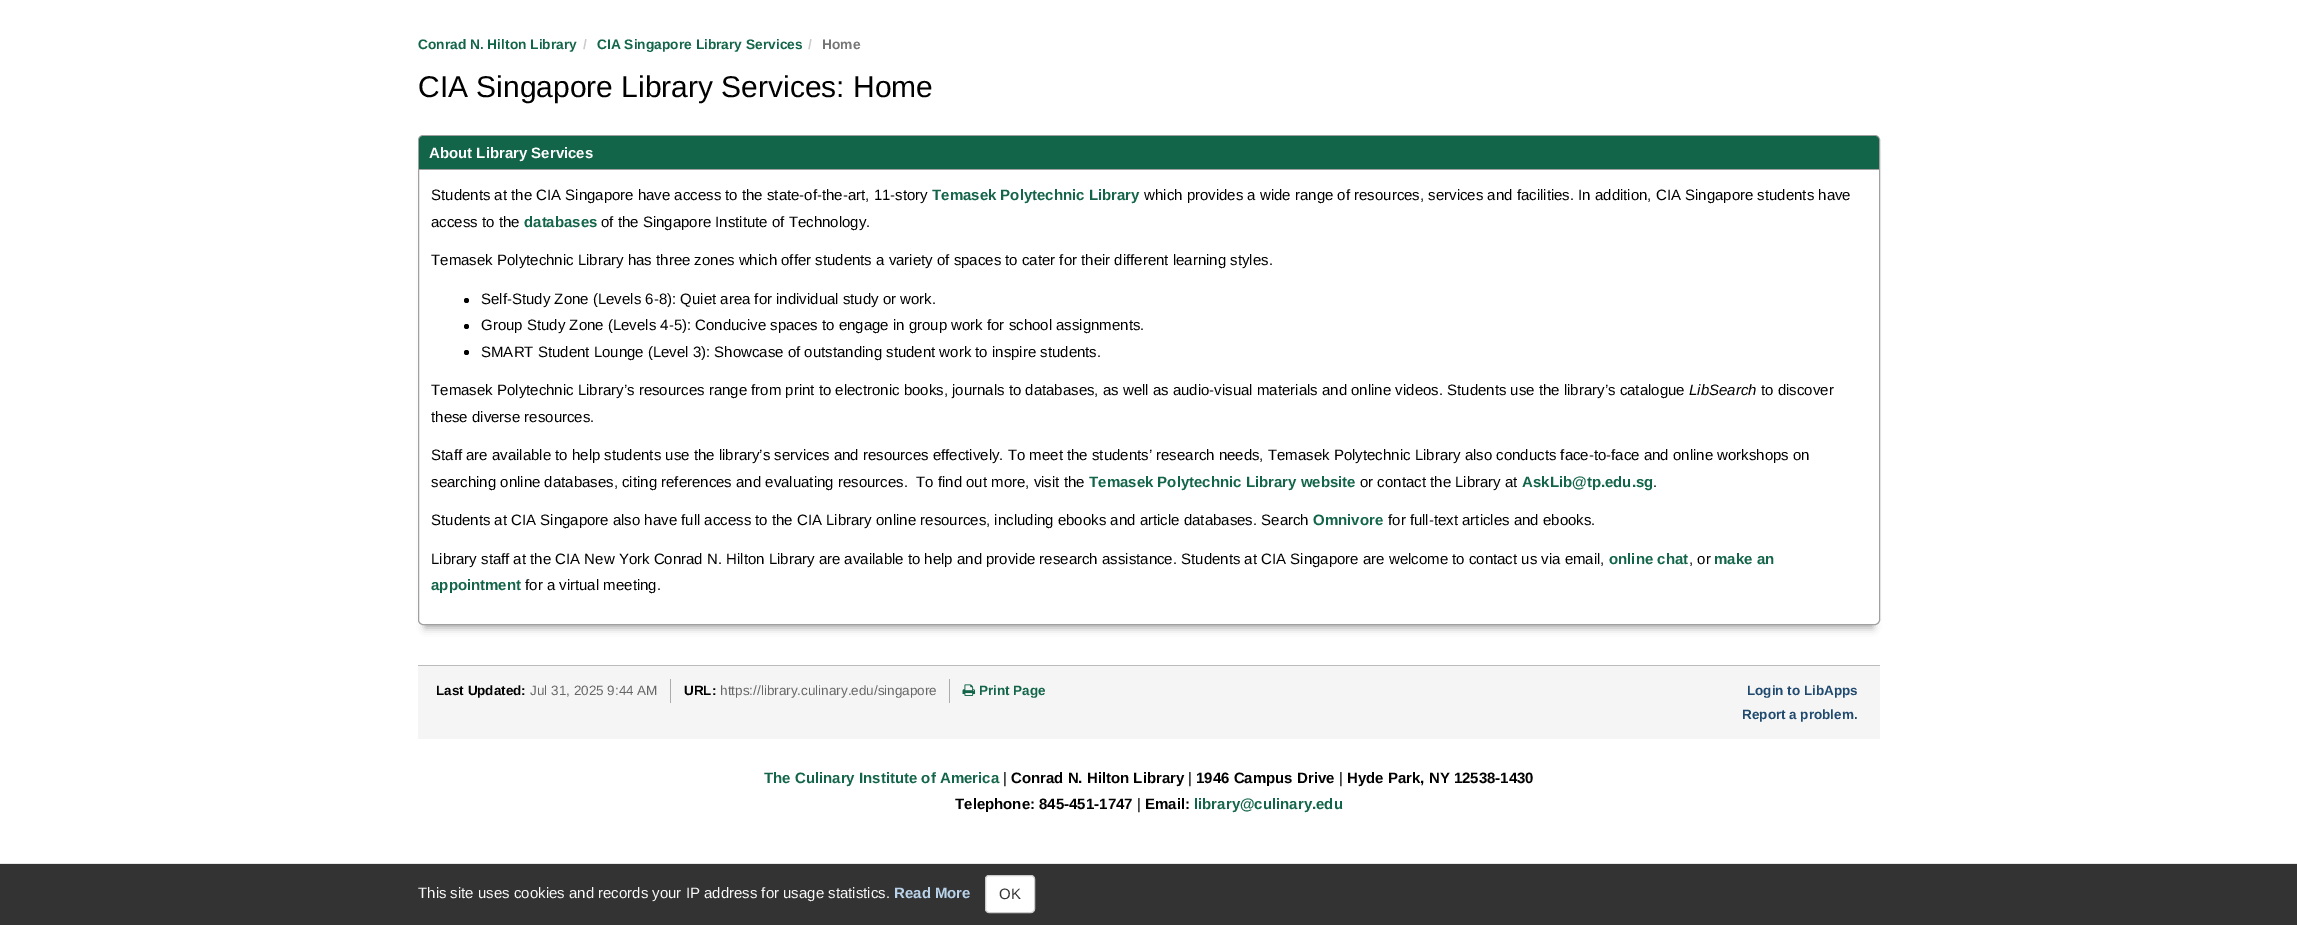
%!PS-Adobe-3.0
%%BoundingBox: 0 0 2297 925
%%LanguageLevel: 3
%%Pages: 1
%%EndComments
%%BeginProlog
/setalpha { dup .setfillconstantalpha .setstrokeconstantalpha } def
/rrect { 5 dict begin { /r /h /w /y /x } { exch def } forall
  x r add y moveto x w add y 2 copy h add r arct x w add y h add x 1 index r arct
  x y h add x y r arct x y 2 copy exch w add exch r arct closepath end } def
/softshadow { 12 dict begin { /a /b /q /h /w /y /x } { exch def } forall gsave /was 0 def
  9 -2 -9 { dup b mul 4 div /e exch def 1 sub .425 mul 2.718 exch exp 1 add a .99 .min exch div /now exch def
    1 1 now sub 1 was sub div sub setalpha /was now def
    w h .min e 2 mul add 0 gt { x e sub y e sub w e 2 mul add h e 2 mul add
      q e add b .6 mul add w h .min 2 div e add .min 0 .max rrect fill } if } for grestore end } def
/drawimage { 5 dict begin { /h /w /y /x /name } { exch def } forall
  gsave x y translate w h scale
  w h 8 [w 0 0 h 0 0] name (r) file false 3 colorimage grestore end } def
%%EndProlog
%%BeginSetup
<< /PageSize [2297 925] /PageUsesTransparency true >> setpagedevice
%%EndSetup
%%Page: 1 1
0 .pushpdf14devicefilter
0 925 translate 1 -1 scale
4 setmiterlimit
1 setgray
0 0 2297 925 rectfill
0.667 setgray
425 153 1448 475 0 4 1 softshadow
1 setgray
418.5 135.5 1461 489 4.5 rrect gsave fill grestore
0.627 setgray
stroke
0.075 0.396 0.29 setrgbcolor
newpath 423 136 moveto 1875 136 lineto 1877 136 1879 138 1879 140 curveto 1879 170 lineto 419 170 lineto 419 140 lineto 419 138 421 136 423 136 curveto closepath fill
0.627 setgray
419 169 1460 1 rectfill
0 setgray
newpath 466.5 300.5 2.5 0 360 arc closepath fill
newpath 466.5 326.5 2.5 0 360 arc closepath fill
newpath 466.5 352.5 2.5 0 360 arc closepath fill
0.961 setgray
418 666 1462 73 rectfill
0.733 setgray
418 665 1462 1 rectfill
0.675 setgray
670 679 1 24 rectfill
949 679 1 24 rectfill
(images/1.raw) 962 684 14 12 drawimage
0.2 setgray
0 864 2297 61 rectfill
0.906 setgray
0 863 2297 1 rectfill
1 setgray
985.5 875.5 49 37 3.5 rrect gsave fill grestore
0.8 setgray
stroke
/LiberationSans-Bold [13.75 0 0 -13.75 0 0] selectfont
0.075 0.396 0.29 setrgbcolor
418 49 moveto (Conrad N. Hilton Library) show
0.8 setgray
583 49 moveto (/) show
0.075 0.396 0.29 setrgbcolor
597 49 moveto (CIA Singapore Library Services) show
0.8 setgray
808 49 moveto (/) show
0.463 setgray
822 49 moveto (Home) show
/LiberationSans-Regular [30 0 0 -30 0 0] selectfont
0 setgray
418 97 moveto (CIA Singapore Library Services: Home) show
/LiberationSans-Bold [15 0 0 -15 0 0] selectfont
1 setgray
429 158 moveto (About Library Services) show
/LiberationSans-Regular [15 0 0 -15 0 0] selectfont
0 setgray
431 200 moveto (Students at the CIA Singapore have access to the state-of-the-art, 11-story) show
/LiberationSans-Bold [15 0 0 -15 0 0] selectfont
0.075 0.396 0.29 setrgbcolor
932 200 moveto (Temasek Polytechnic Library) show
/LiberationSans-Regular [15 0 0 -15 0 0] selectfont
0 setgray
1144 200 moveto (which provides a wide range of resources, services and facilities. In addition, CIA Singapore students have) show
431 227 moveto (access to the) show
/LiberationSans-Bold [15 0 0 -15 0 0] selectfont
0.075 0.396 0.29 setrgbcolor
524 227 moveto (databases) show
/LiberationSans-Regular [15 0 0 -15 0 0] selectfont
0 setgray
601 227 moveto (of the Singapore Institute of Technology.) show
431 265 moveto (Temasek Polytechnic Library has three zones which offer students a variety of spaces to cater for their different learning styles.) show
481 304 moveto (Self-Study Zone \(Levels 6-8\): Quiet area for individual study or work.) show
481 330 moveto (Group Study Zone \(Levels 4-5\): Conducive spaces to engage in group work for school assignments.) show
481 357 moveto (SMART Student Lounge \(Level 3\): Showcase of outstanding student work to inspire students.) show
431 395 moveto (Temasek Polytechnic Library’s resources range from print to electronic books, journals to databases, as well as audio-visual materials and online videos. Students use the library’s catalogue) show
/LiberationSans-Italic [15 0 0 -15 0 0] selectfont
1689 395 moveto (LibSearch) show
/LiberationSans-Regular [15 0 0 -15 0 0] selectfont
1761 395 moveto (to discover) show
431 422 moveto (these diverse resources.) show
431 460 moveto (Staff are available to help students use the library’s services and resources effectively. To meet the students’ research needs, Temasek Polytechnic Library also conducts face-to-face and online workshops on) show
431 487 moveto (searching online databases, citing references and evaluating resources.  To find out more, visit the) show
/LiberationSans-Bold [15 0 0 -15 0 0] selectfont
0.075 0.396 0.29 setrgbcolor
1089 487 moveto (Temasek Polytechnic Library website) show
/LiberationSans-Regular [15 0 0 -15 0 0] selectfont
0 setgray
1360 487 moveto (or contact the Library at) show
/LiberationSans-Bold [15 0 0 -15 0 0] selectfont
0.075 0.396 0.29 setrgbcolor
1522 487 moveto (AskLib@tp.edu.sg) show
/LiberationSans-Regular [15 0 0 -15 0 0] selectfont
0 setgray
1653 487 moveto (.) show
431 525 moveto (Students at CIA Singapore also have full access to the CIA Library online resources, including ebooks and article databases. Search) show
/LiberationSans-Bold [15 0 0 -15 0 0] selectfont
0.075 0.396 0.29 setrgbcolor
1313 525 moveto (Omnivore) show
/LiberationSans-Regular [15 0 0 -15 0 0] selectfont
0 setgray
1388 525 moveto (for full-text articles and ebooks.) show
431 564 moveto (Library staff at the CIA New York Conrad N. Hilton Library are available to help and provide research assistance. Students at CIA Singapore are welcome to contact us via email,) show
/LiberationSans-Bold [15 0 0 -15 0 0] selectfont
0.075 0.396 0.29 setrgbcolor
1609 564 moveto (online chat) show
/LiberationSans-Regular [15 0 0 -15 0 0] selectfont
0 setgray
1689 564 moveto (, or) show
/LiberationSans-Bold [15 0 0 -15 0 0] selectfont
0.075 0.396 0.29 setrgbcolor
1714 564 moveto (make an) show
431 590 moveto (appointment) show
/LiberationSans-Regular [15 0 0 -15 0 0] selectfont
0 setgray
525 590 moveto (for a virtual meeting.) show
/LiberationSans-Bold [13.5 0 0 -13.5 0 0] selectfont
436 695 moveto (Last Updated:) show
/LiberationSans-Regular [13.5 0 0 -13.5 0 0] selectfont
0.4 setgray
530 695 moveto (Jul 31, 2025 9:44 AM) show
/LiberationSans-Bold [13.5 0 0 -13.5 0 0] selectfont
0 setgray
684 695 moveto (URL:) show
/LiberationSans-Regular [13.5 0 0 -13.5 0 0] selectfont
0.4 setgray
720 695 moveto (https://library.culinary.edu/singapore) show
/LiberationSans-Bold [13.5 0 0 -13.5 0 0] selectfont
0.075 0.396 0.29 setrgbcolor
979 695 moveto (Print Page) show
0.122 0.286 0.431 setrgbcolor
1747 695 moveto (Login to LibApps) show
1742 719 moveto (Report a problem.) show
/LiberationSans-Bold [15 0 0 -15 0 0] selectfont
0.075 0.396 0.29 setrgbcolor
764 783 moveto (The Culinary Institute of America) show
/LiberationSans-Regular [15 0 0 -15 0 0] selectfont
0 setgray
1003 783 moveto (|) show
/LiberationSans-Bold [15 0 0 -15 0 0] selectfont
1011 783 moveto (Conrad N. Hilton Library) show
/LiberationSans-Regular [15 0 0 -15 0 0] selectfont
1188 783 moveto (|) show
/LiberationSans-Bold [15 0 0 -15 0 0] selectfont
1196 783 moveto (1946 Campus Drive) show
/LiberationSans-Regular [15 0 0 -15 0 0] selectfont
1339 783 moveto (|) show
/LiberationSans-Bold [15 0 0 -15 0 0] selectfont
1347 783 moveto (Hyde Park, NY 12538-1430) show
955 809 moveto (Telephone: 845-451-1747) show
/LiberationSans-Regular [15 0 0 -15 0 0] selectfont
1137 809 moveto (|) show
/LiberationSans-Bold [15 0 0 -15 0 0] selectfont
1145 809 moveto (Email:) show
0.075 0.396 0.29 setrgbcolor
1194 809 moveto (library@culinary.edu) show
/LiberationSans-Regular [15 0 0 -15 0 0] selectfont
0.973 setgray
418 898 moveto (This site uses cookies and records your IP address for usage statistics.) show
/LiberationSans-Bold [15 0 0 -15 0 0] selectfont
0.725 0.827 0.922 setrgbcolor
894 898 moveto (Read More) show
/LiberationSans-Regular [15 0 0 -15 0 0] selectfont
0.2 setgray
999 899 moveto (OK) show
.poppdf14devicefilter showpage
%%EOF
